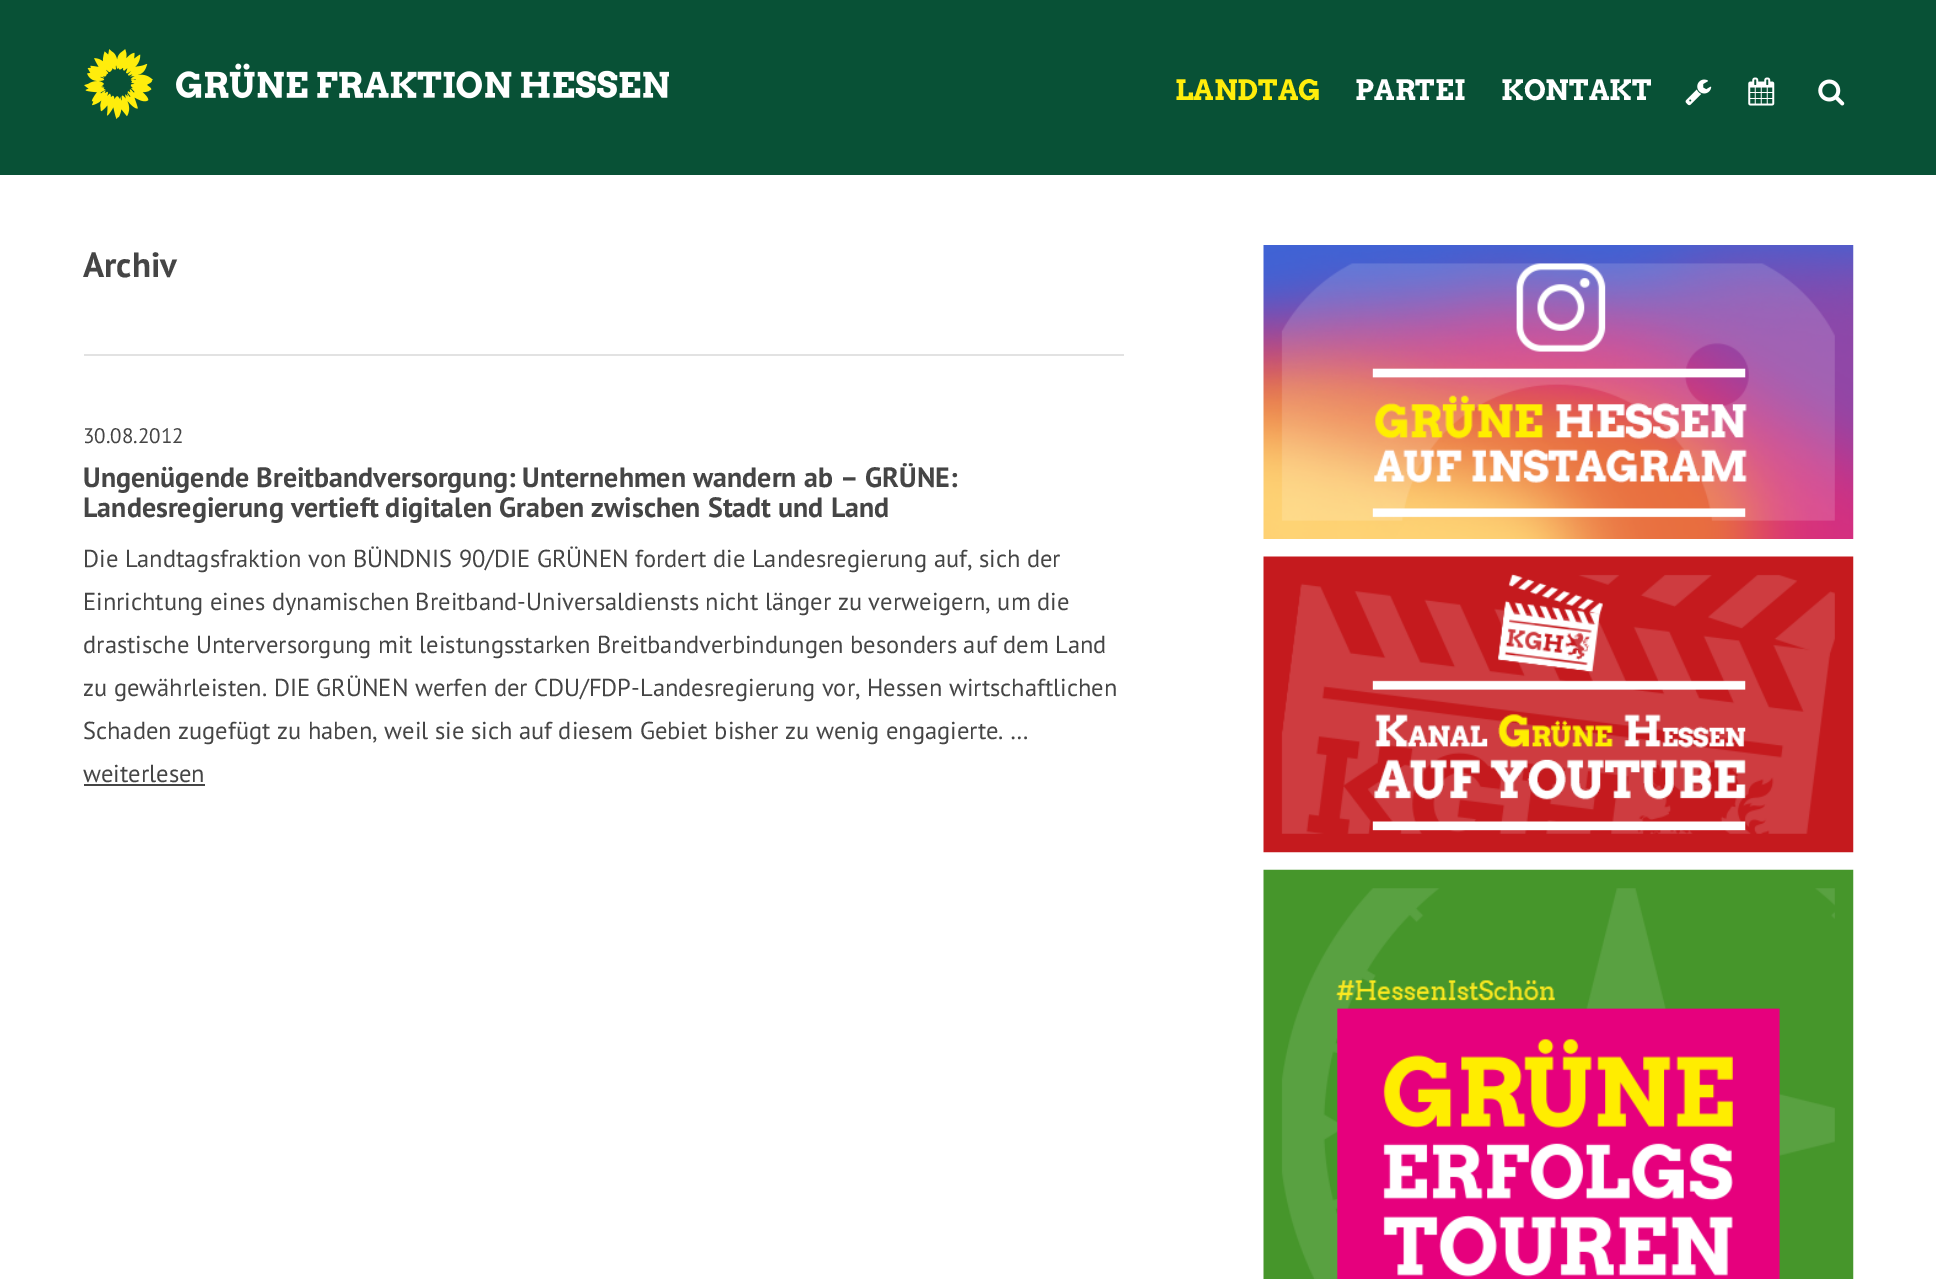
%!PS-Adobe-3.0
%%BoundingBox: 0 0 1936 1279
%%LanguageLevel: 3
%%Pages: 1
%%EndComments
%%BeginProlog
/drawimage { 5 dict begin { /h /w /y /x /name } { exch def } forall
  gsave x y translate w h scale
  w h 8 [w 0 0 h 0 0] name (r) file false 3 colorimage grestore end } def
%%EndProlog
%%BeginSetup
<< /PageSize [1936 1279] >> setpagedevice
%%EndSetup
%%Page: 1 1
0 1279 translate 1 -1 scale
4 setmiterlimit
1 setgray
0 0 1936 1279 rectfill
0.031 0.318 0.212 setrgbcolor
0 0 1936 175 rectfill
(images/1.raw) 84 49 585 70 drawimage
(images/2.raw) 1685 79 27 27 drawimage
(images/3.raw) 1748 77 27 29 drawimage
(images/4.raw) 1818 79 27 27 drawimage
0.886 setgray
84 354 1040 2 rectfill
0.271 setgray
84 784 121 2 rectfill
(images/5.raw) 1263 245 591 294 drawimage
(images/6.raw) 1263 556 591 297 drawimage
(images/7.raw) 1263 869 591 410 drawimage
/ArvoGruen-Regular [28 0 0 -28 0 0] selectfont
1 0.929 0.047 setrgbcolor
1175 100 moveto (LANDTAG) show
1 setgray
1355 100 moveto (PARTEI) show
1501 100 moveto (KONTAKT) show
/PTSans-Bold [35 0 0 -35 0 0] selectfont
0.271 setgray
83 277 moveto (Archiv) show
/PTSans-Regular [21 0 0 -21 0 0] selectfont
83 443 moveto (30.08.2012) show
/PTSans-Bold [28 0 0 -28 0 0] selectfont
83 487 moveto (Ungenügende Breitbandversorgung: Unternehmen wandern ab – GRÜNE:) show
83 517 moveto (Landesregierung vertieft digitalen Graben zwischen Stadt und Land) show
/PTSans-Regular [24.5 0 0 -24.5 0 0] selectfont
83 567 moveto (Die Landtagsfraktion von BÜNDNIS 90/DIE GRÜNEN fordert die Landesregierung auf, sich der) show
83 610 moveto (Einrichtung eines dynamischen Breitband-Universaldiensts nicht länger zu verweigern, um die) show
83 653 moveto (drastische Unterversorgung mit leistungsstarken Breitbandverbindungen besonders auf dem Land) show
83 696 moveto (zu gewährleisten. DIE GRÜNEN werfen der CDU/FDP-Landesregierung vor, Hessen wirtschaftlichen) show
83 739 moveto (Schaden zugefügt zu haben, weil sie sich auf diesem Gebiet bisher zu wenig engagierte. …) show
83 782 moveto (weiterlesen) show
showpage
%%EOF
